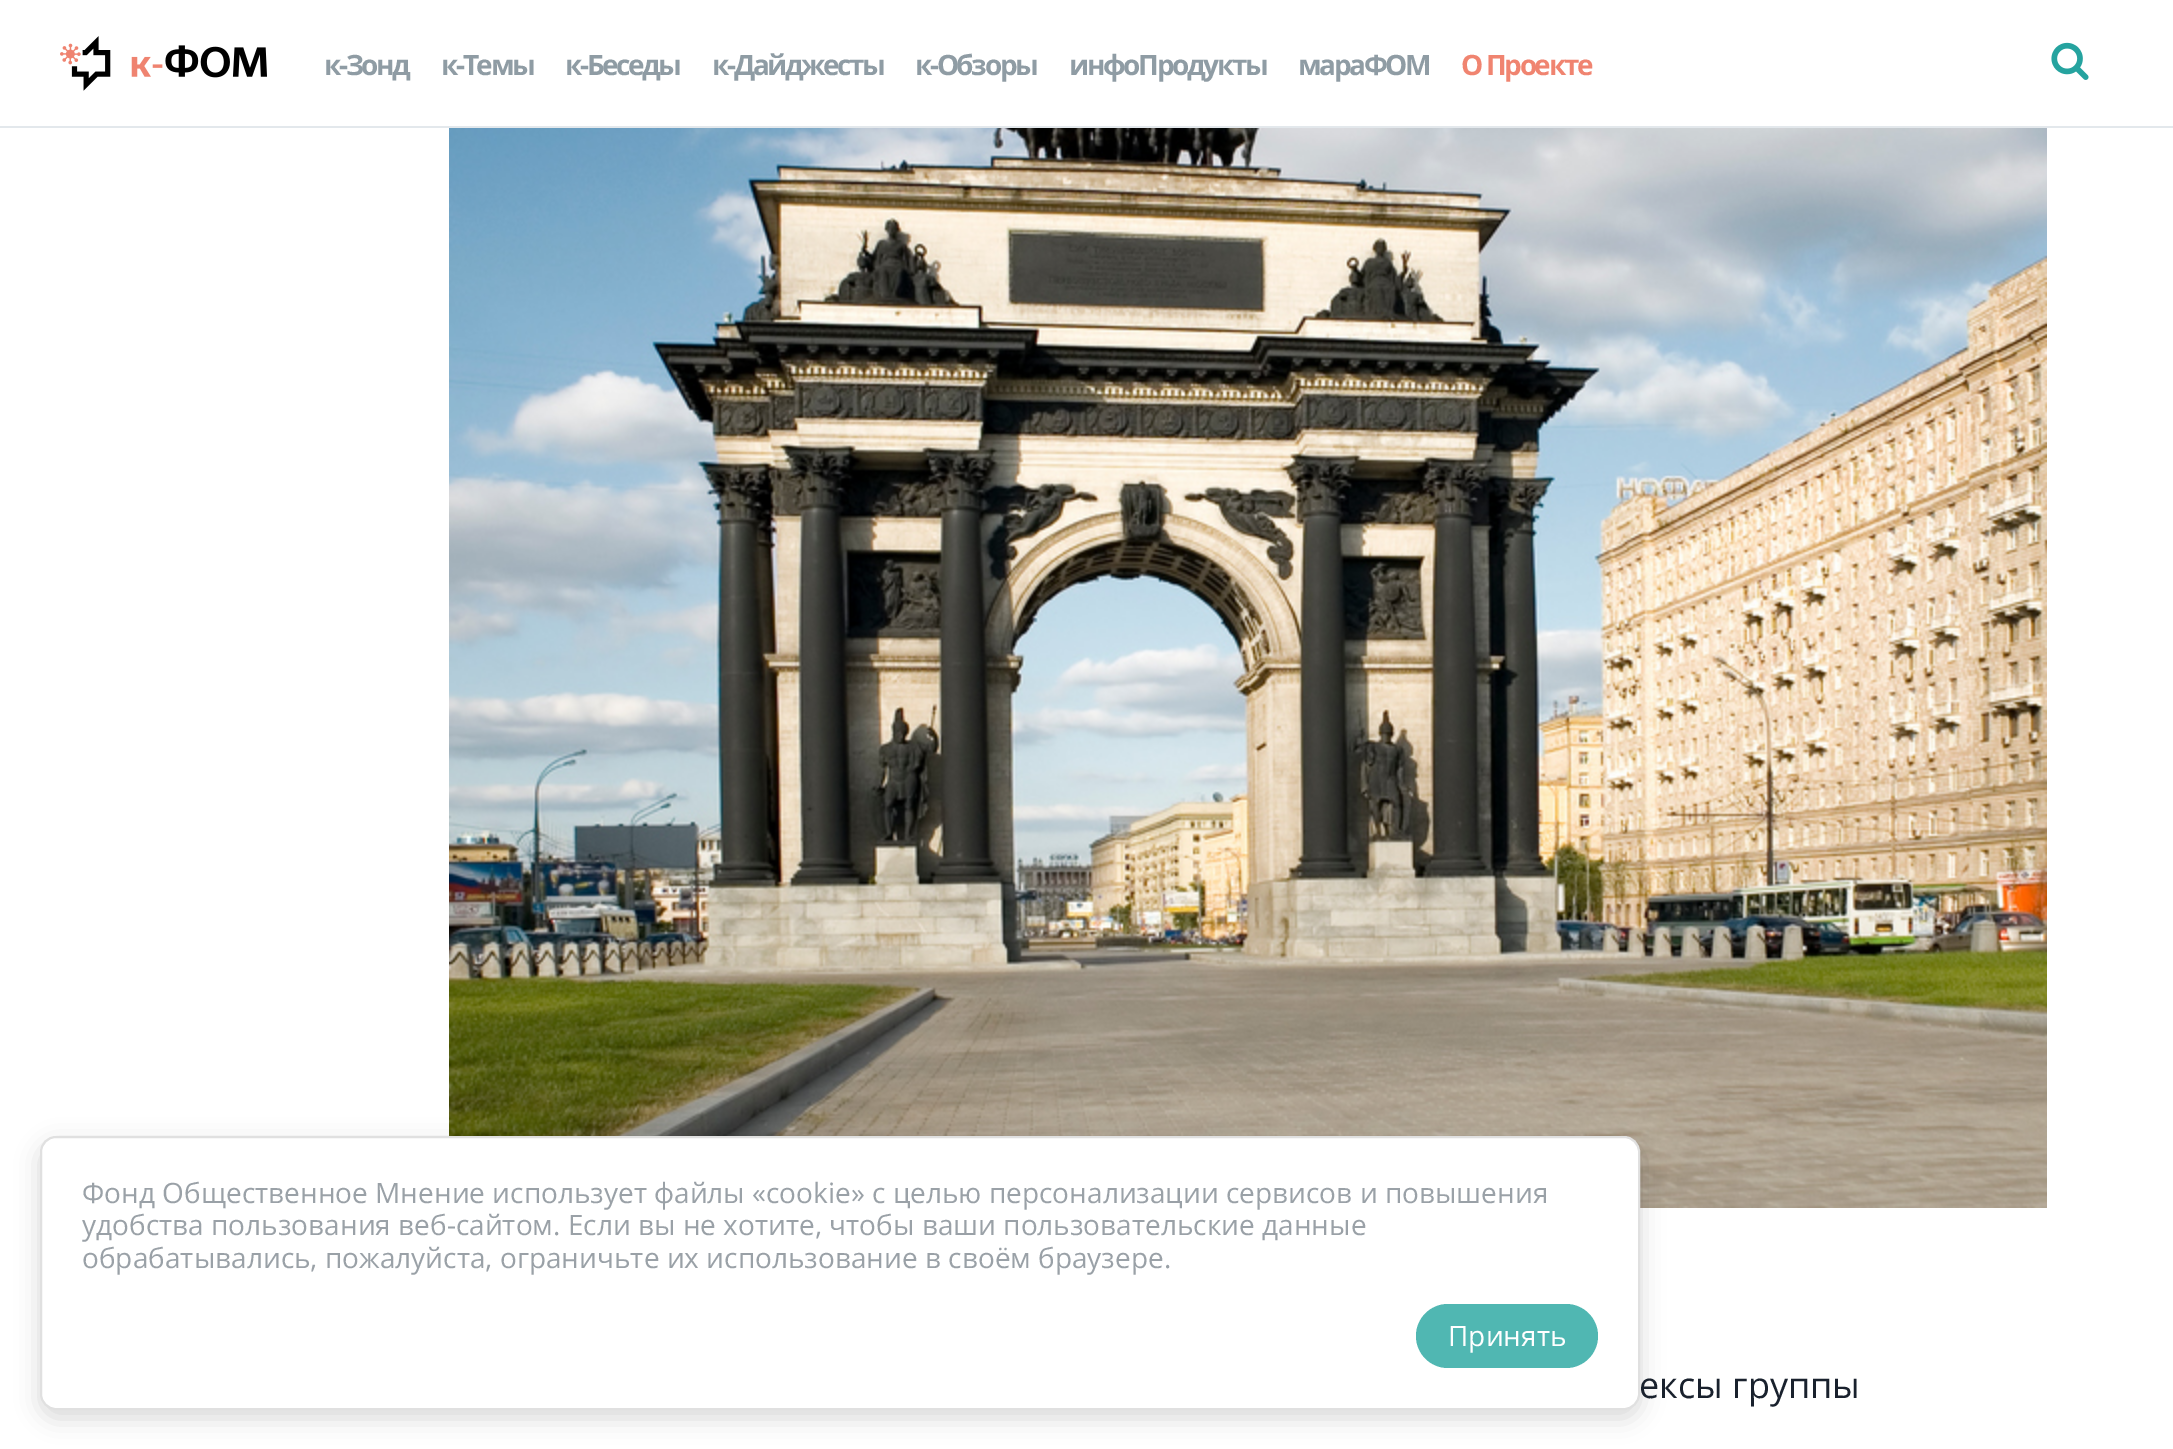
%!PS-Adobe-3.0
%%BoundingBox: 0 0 2173 1449
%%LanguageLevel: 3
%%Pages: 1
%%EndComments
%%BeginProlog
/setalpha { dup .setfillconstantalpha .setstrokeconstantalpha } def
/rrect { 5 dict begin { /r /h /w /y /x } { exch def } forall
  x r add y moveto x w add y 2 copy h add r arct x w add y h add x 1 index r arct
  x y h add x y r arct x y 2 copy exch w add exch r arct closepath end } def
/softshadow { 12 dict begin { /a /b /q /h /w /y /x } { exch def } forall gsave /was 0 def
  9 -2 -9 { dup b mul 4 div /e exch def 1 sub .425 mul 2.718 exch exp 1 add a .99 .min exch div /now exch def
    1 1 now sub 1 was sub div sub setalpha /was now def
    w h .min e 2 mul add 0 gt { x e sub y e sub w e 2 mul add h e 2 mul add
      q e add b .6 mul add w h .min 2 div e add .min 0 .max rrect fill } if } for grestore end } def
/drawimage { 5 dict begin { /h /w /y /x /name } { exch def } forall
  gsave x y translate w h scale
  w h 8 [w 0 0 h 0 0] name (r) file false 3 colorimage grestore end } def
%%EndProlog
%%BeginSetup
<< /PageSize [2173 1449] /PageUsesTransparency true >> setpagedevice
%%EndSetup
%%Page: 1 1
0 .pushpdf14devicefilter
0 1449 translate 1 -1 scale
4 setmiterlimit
1 setgray
0 0 2173 1449 rectfill
0.89 0.91 0.925 setrgbcolor
0 126 2173 2 rectfill
(images/1.raw) 60 36 207 55 drawimage
(images/2.raw) 2051 42 38 38 drawimage
(images/3.raw) 449 128 1598 1080 drawimage
0 setgray
40 1144 1600 274 16 12 0.15 softshadow
1 setgray
41 1137 1598 272 15 rrect gsave fill grestore
0.878 setgray
2 setlinewidth
stroke
0.314 0.718 0.698 setrgbcolor
1416 1304 182 64 32 rrect fill
/OpenSans-Bold [28 0 0 -28 0 0] selectfont
0.561 0.612 0.643 setrgbcolor
324 75 moveto -2.4 0 (к-Зонд) ashow
441 75 moveto -2.4 0 (к-Темы) ashow
565 75 moveto -2.4 0 (к-Беседы) ashow
712 75 moveto -2.4 0 (к-Дайджесты) ashow
915 75 moveto -2.4 0 (к-Обзоры) ashow
1069 75 moveto -2.4 0 (инфоПродукты) ashow
1298 75 moveto -2.4 0 (мараФОМ) ashow
0.941 0.518 0.439 setrgbcolor
1461 75 moveto -2.4 0 (О Проекте) ashow
/OpenSans-Regular [28 0 0 -28 0 0] selectfont
0.604 0.631 0.655 setrgbcolor
82 1203 moveto (Фонд Общественное Мнение использует файлы «cookie» с целью персонализации сервисов и повышения) show
82 1235 moveto (удобства пользования веб-сайтом. Если вы не хотите, чтобы ваши пользовательские данные) show
82 1268 moveto (обрабатывались, пожалуйста, ограничьте их использование в своём браузере.) show
1 setgray
1448 1346 moveto (Принять) show
/OpenSans-Regular [36 0 0 -36 0 0] selectfont
0.098 0.129 0.176 setrgbcolor
1639 1398 moveto (ексы группы) show
.poppdf14devicefilter showpage
%%EOF
